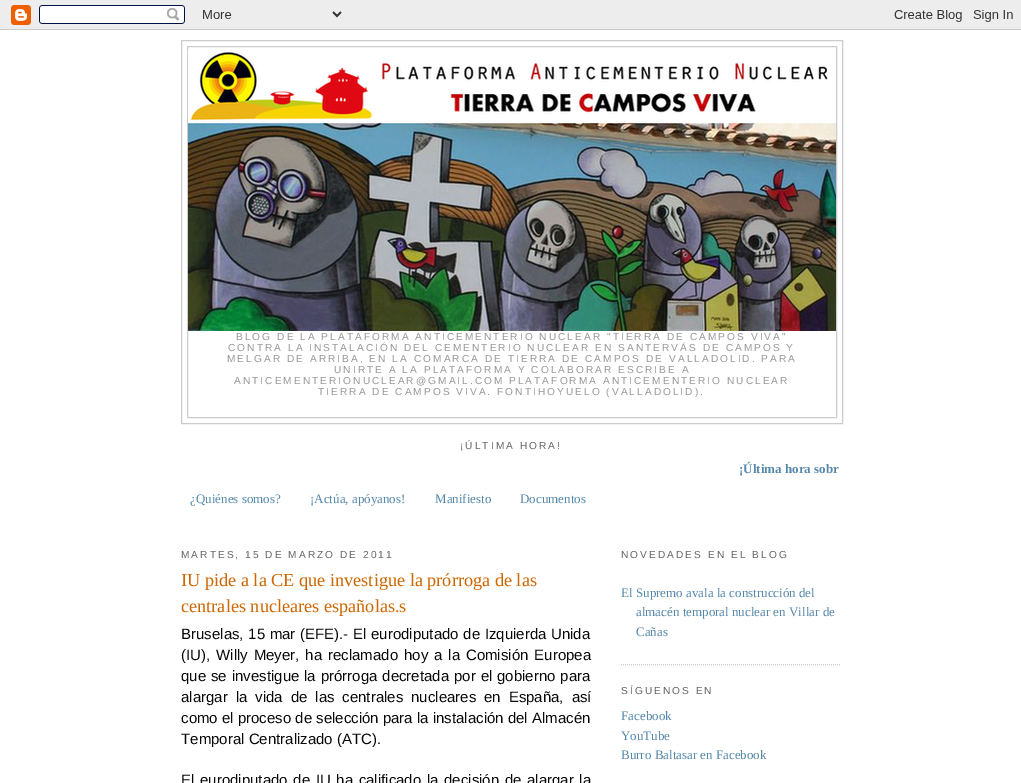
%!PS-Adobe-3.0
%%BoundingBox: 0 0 1021 783
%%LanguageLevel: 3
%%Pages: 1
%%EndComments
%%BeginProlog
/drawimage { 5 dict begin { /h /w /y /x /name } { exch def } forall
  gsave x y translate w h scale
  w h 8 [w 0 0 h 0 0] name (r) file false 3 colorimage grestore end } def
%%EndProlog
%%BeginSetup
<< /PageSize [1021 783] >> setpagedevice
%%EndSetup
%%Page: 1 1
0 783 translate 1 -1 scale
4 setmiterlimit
1 setgray
0 0 1021 783 rectfill
(images/1.raw) 0 0 1021 30 drawimage
0.8 setgray
181.5 40.5 661 383 rectstroke
187.5 46.5 649 371 rectstroke
(images/2.raw) 188 50 648 281 drawimage
[1 1] 0 setdash
newpath 621 664.5 moveto 841 664.5 lineto stroke
/LiberationSans-Regular [10.15 0 0 -10.15 0 0] selectfont
0.6 setgray
236 340 moveto 2.03 0 (BLOG DE LA PLATAFORMA ANTICEMENTERIO NUCLEAR "TIERRA DE CAMPOS VIVA") ashow
228 351 moveto 2.03 0 (CONTRA LA INSTALACIÓN DEL CEMENTERIO NUCLEAR EN SANTERVÁS DE CAMPOS Y) ashow
227 362 moveto 2.03 0 (MELGAR DE ARRIBA, EN LA COMARCA DE TIERRA DE CAMPOS DE VALLADOLID. PARA) ashow
334 373 moveto 2.03 0 (UNIRTE A LA PLATAFORMA Y COLABORAR ESCRIBE A) ashow
234 384 moveto 2.03 0 (ANTICEMENTERIONUCLEAR@GMAIL.COM) ashow
509 384 moveto 2.03 0 (PLATAFORMA ANTICEMENTERIO NUCLEAR) ashow
318 395 moveto 2.03 0 (TIERRA DE CAMPOS VIVA. FONTIHOYUELO \(VALLADOLID\).) ashow
0.4 setgray
460 449 moveto 2.03 0 (¡ÚLTIMA HORA!) ashow
/LiberationSerif-Bold [13 0 0 -13 0 0] selectfont
0.333 0.533 0.667 setrgbcolor
739 473 moveto (¡Última hora sobr) show
/LiberationSerif-Regular [13 0 0 -13 0 0] selectfont
190 503 moveto (¿Quiénes somos?) show
310 503 moveto (¡Actúa, apóyanos!) show
435 503 moveto (Manifiesto) show
520 503 moveto (Documentos) show
/LiberationSans-Regular [10.15 0 0 -10.15 0 0] selectfont
0.4 setgray
181 558 moveto 2.03 0 (MARTES, 15 DE MARZO DE 2011) ashow
/LiberationSerif-Regular [18.25 0 0 -18.25 0 0] selectfont
0.8 0.4 0 setrgbcolor
181 586 moveto (IU pide a la CE que investigue la prórroga de las) show
181 612 moveto (centrales nucleares españolas.s) show
/LiberationSans-Regular [15 0 0 -15 0 0] selectfont
0.031 setgray
181 639 moveto 0.5 0 32 (Bruselas, 15 mar \(EFE\).- El eurodiputado de Izquierda Unida) widthshow
181 660 moveto 1.75 0 32 (\(IU\), Willy Meyer, ha reclamado hoy a la Comisión Europea) widthshow
181 681 moveto 0.75 0 32 (que se investigue la prórroga decretada por el gobierno para) widthshow
181 702 moveto 3.75 0 32 (alargar la vida de las centrales nucleares en España, así) widthshow
181 723 moveto (como el proceso de selección para la instalación del Almacén) show
181 744 moveto (Temporal Centralizado \(ATC\).) show
181 785 moveto 1.5 0 32 (El eurodiputado de IU ha calificado la decisión de alargar la) widthshow
/LiberationSans-Regular [10.15 0 0 -10.15 0 0] selectfont
0.4 setgray
621 558 moveto 2.03 0 (NOVEDADES EN EL BLOG) ashow
/LiberationSerif-Regular [13 0 0 -13 0 0] selectfont
0.333 0.533 0.667 setrgbcolor
621 597 moveto (El Supremo avala la construcción del) show
636 616 moveto (almacén temporal nuclear en Villar de) show
636 636 moveto (Cañas) show
/LiberationSans-Regular [10.15 0 0 -10.15 0 0] selectfont
0.4 setgray
621 694 moveto 2.03 0 (SÍGUENOS EN) ashow
/LiberationSerif-Regular [13 0 0 -13 0 0] selectfont
0.333 0.533 0.667 setrgbcolor
621 720 moveto (Facebook) show
621 740 moveto (YouTube) show
621 759 moveto (Burro Baltasar en Facebook) show
showpage
%%EOF
